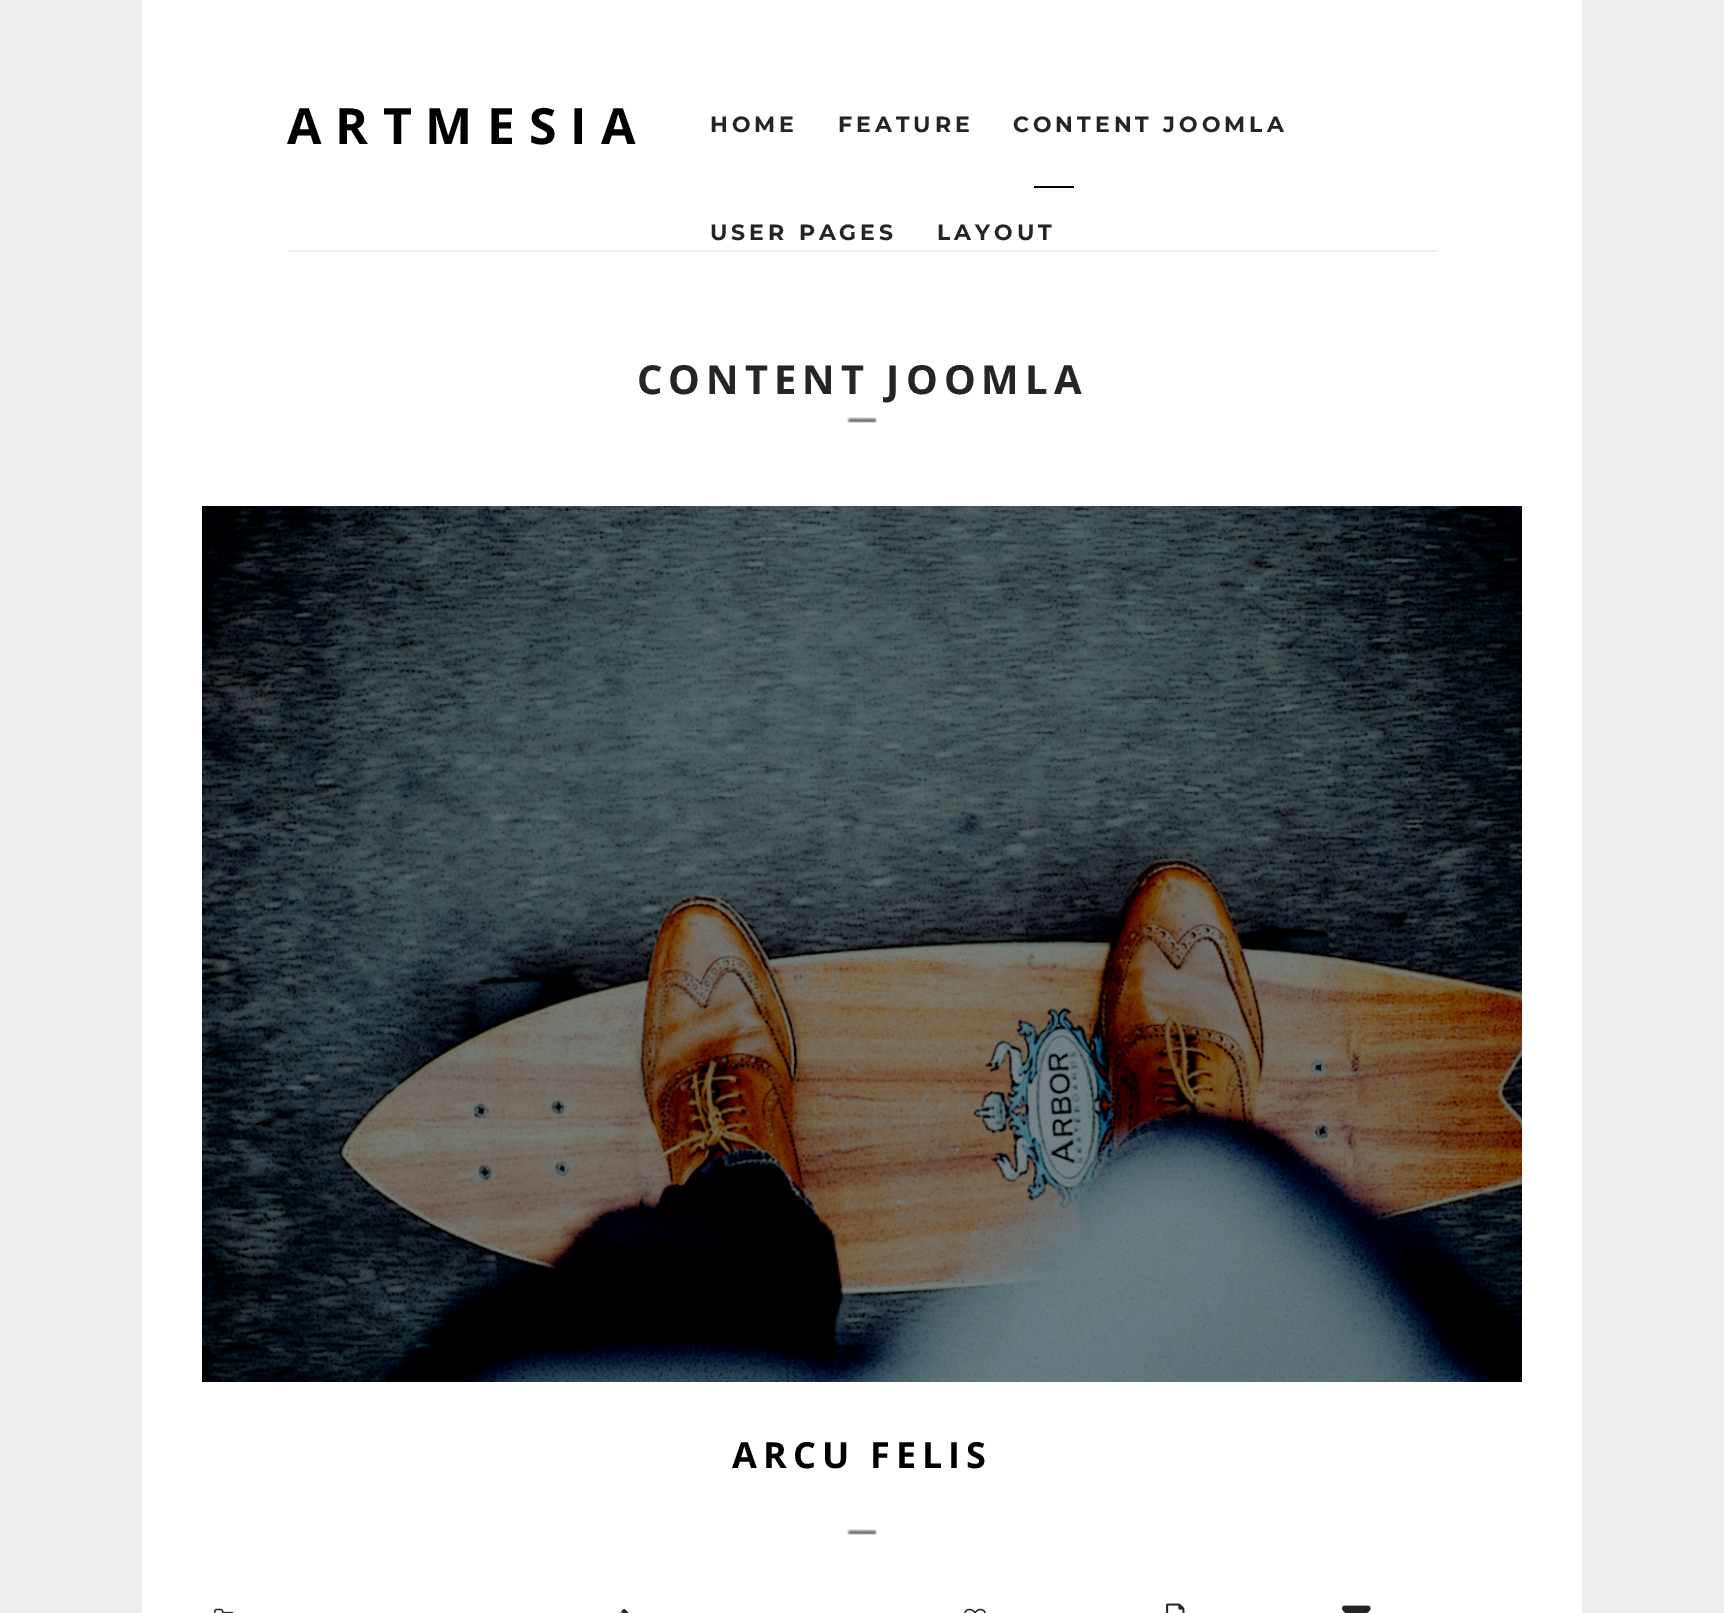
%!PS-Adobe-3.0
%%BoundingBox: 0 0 1724 1613
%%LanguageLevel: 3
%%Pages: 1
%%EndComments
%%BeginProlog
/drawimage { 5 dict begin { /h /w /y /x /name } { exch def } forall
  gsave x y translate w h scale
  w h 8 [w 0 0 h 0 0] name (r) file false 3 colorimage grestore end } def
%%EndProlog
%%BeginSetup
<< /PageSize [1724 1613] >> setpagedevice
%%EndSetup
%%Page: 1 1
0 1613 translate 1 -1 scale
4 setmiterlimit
0.933 setgray
0 0 1724 1613 rectfill
1 setgray
142 0 1440 1613 rectfill
0.933 setgray
288 250 1150 2 rectfill
0 setgray
1034 186 40 2 rectfill
(images/1.raw) 847 417 30 6 drawimage
(images/2.raw) 202 506 1320 876 drawimage
(images/1.raw) 847 1529 30 6 drawimage
(images/3.raw) 214 1608 20 5 drawimage
(images/4.raw) 619 1609 10 4 drawimage
(images/5.raw) 964 1608 22 5 drawimage
(images/6.raw) 1166 1603 19 10 drawimage
(images/7.raw) 1342 1605 29 8 drawimage
/OpenSans-Bold [50 0 0 -50 0 0] selectfont
287 144 moveto 14 0 (ARTMESIA) ashow
/Montserrat-Bold [22 0 0 -22 0 0] selectfont
0.145 setgray
710 132 moveto 4 0 (HOME) ashow
838 132 moveto 4 0 (FEATURE) ashow
1013 132 moveto 4 0 (CONTENT JOOMLA) ashow
710 240 moveto 4 0 (USER PAGES) ashow
937 240 moveto 4 0 (LAYOUT) ashow
/OpenSans-Bold [40 0 0 -40 0 0] selectfont
637 394 moveto 6 0 (CONTENT JOOMLA) ashow
/OpenSans-Bold [36 0 0 -36 0 0] selectfont
0 setgray
732 1468 moveto 6 0 (ARCU FELIS) ashow
showpage
%%EOF
